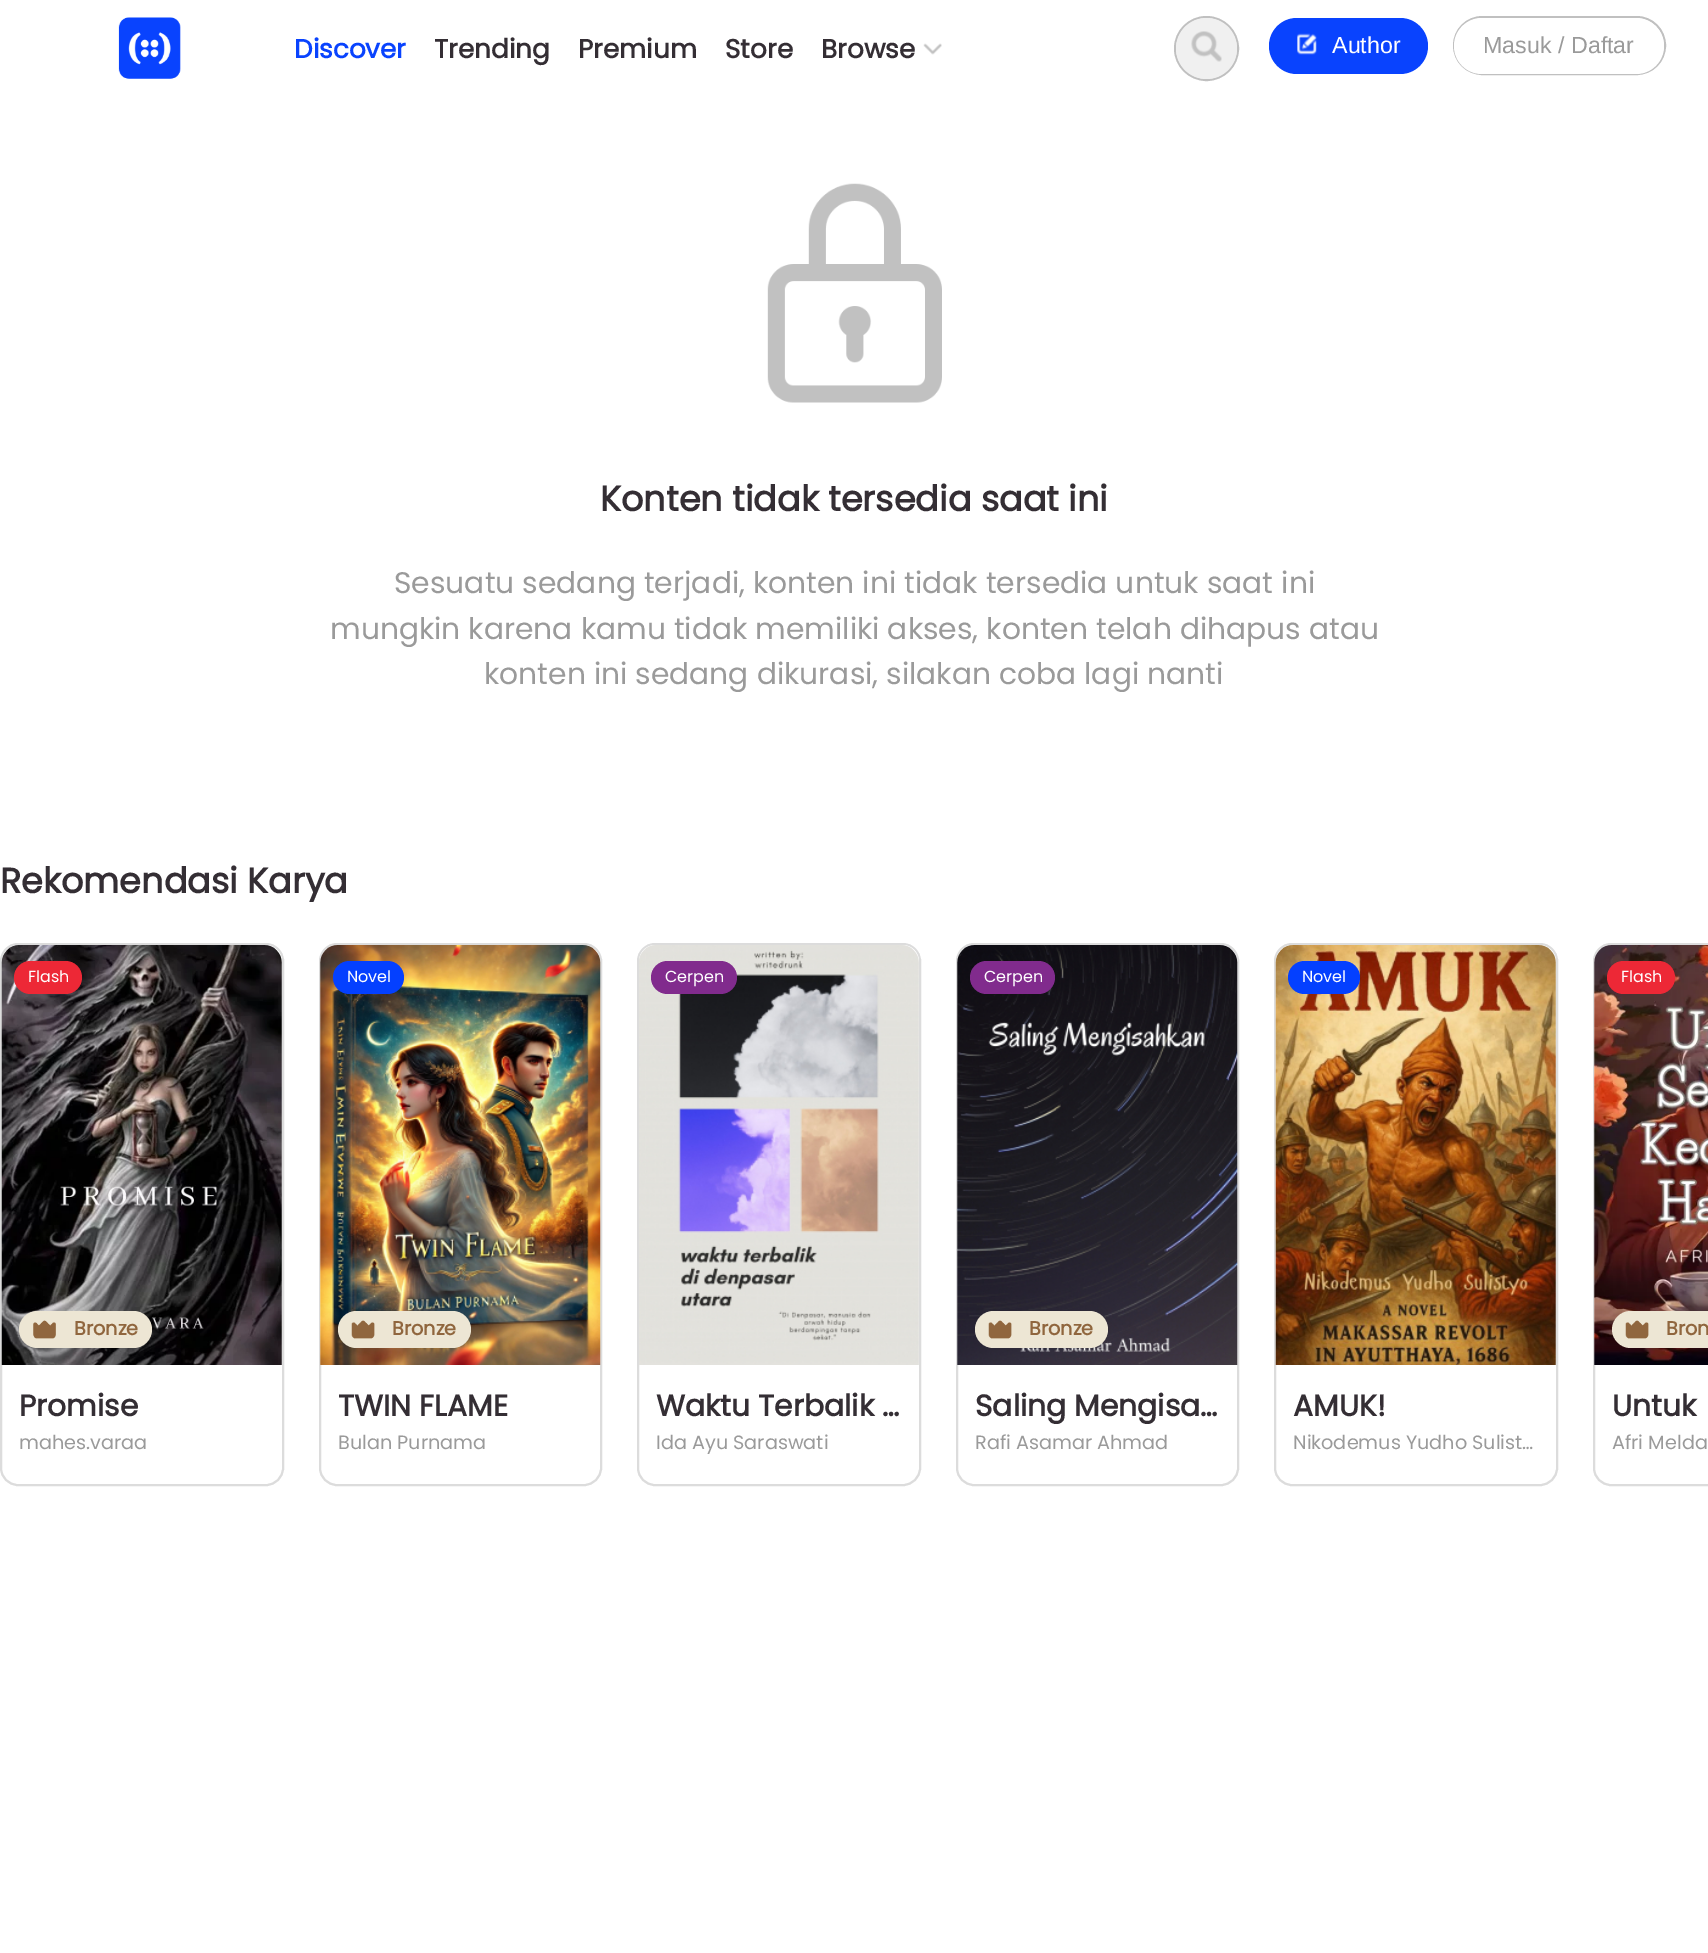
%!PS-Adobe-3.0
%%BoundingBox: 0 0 1708 1953
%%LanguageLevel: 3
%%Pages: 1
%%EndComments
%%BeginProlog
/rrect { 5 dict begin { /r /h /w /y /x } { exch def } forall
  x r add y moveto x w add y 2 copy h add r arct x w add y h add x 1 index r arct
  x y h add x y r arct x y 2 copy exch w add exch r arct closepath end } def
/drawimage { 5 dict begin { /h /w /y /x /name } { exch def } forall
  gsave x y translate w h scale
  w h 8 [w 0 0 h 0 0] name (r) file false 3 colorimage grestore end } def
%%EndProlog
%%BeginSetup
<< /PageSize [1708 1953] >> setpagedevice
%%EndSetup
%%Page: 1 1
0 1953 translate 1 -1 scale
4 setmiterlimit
1 setgray
0 0 1708 1953 rectfill
(images/1.raw) 118 17 63 62 drawimage
(images/2.raw) 923 43 19 12 drawimage
0.753 setgray
2 setlinewidth
newpath 1206.5 48.5 31.5 0 360 arc closepath stroke
0.941 setgray
newpath 1206.5 48.5 30.5 0 360 arc closepath fill
(images/3.raw) 1191 31 31 31 drawimage
0.035 0.263 0.996 setrgbcolor
1269 18 159 56 28 rrect fill
(images/4.raw) 1297 33 20 22 drawimage
0.753 setgray
1454 17 211 57 28.5 rrect stroke
1 setgray
1454 18 210 56 28 rrect fill
(images/5.raw) 767 183 175 220 drawimage
0.863 setgray
1 944 282 541 17 rrect stroke
0.941 setgray
newpath 20 945 moveto 264 945 lineto 274 945 282 953 282 963 curveto 282 1365 lineto 2 1365 lineto 2 963 lineto 2 953 10 945 20 945 curveto closepath fill
(images/6.raw) 1 945 281 420 drawimage
0.929 0.157 0.212 setrgbcolor
14 961 68 33 16.5 rrect fill
0.929 0.902 0.831 setrgbcolor
19 1311 133 37 18.5 rrect fill
(images/7.raw) 33 1320 23 19 drawimage
0.863 setgray
320 944 281 541 17 rrect stroke
0.941 setgray
newpath 338 945 moveto 582 945 lineto 592 945 600 953 600 963 curveto 600 1365 lineto 320 1365 lineto 320 963 lineto 320 953 328 945 338 945 curveto closepath fill
(images/8.raw) 320 945 281 420 drawimage
0.016 0.251 1 setrgbcolor
333 961 71 33 16.5 rrect fill
0.929 0.902 0.831 setrgbcolor
338 1311 133 37 18.5 rrect fill
(images/9.raw) 351 1320 24 19 drawimage
0.863 setgray
638 944 282 541 17 rrect stroke
0.941 setgray
newpath 657 945 moveto 901 945 lineto 911 945 919 953 919 963 curveto 919 1365 lineto 639 1365 lineto 639 963 lineto 639 953 647 945 657 945 curveto closepath fill
(images/10.raw) 639 945 280 420 drawimage
0.506 0.169 0.553 setrgbcolor
651 961 86 33 16.5 rrect fill
0.863 setgray
957 944 281 541 17 rrect stroke
0.941 setgray
newpath 975 945 moveto 1219 945 lineto 1229 945 1237 953 1237 963 curveto 1237 1365 lineto 957 1365 lineto 957 963 lineto 957 953 965 945 975 945 curveto closepath fill
(images/11.raw) 957 945 281 420 drawimage
0.506 0.169 0.553 setrgbcolor
970 961 85 33 16.5 rrect fill
0.929 0.902 0.831 setrgbcolor
975 1311 133 37 18.5 rrect fill
(images/9.raw) 988 1320 24 19 drawimage
0.863 setgray
1275 944 282 541 17 rrect stroke
0.941 setgray
newpath 1294 945 moveto 1538 945 lineto 1548 945 1556 953 1556 963 curveto 1556 1365 lineto 1276 1365 lineto 1276 963 lineto 1276 953 1284 945 1294 945 curveto closepath fill
(images/12.raw) 1275 945 281 420 drawimage
0.016 0.251 1 setrgbcolor
1288 961 72 33 16.5 rrect fill
0.863 setgray
1594 944 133 541 17 rrect stroke
0.941 setgray
newpath 1612 945 moveto 1708 945 lineto 1708 1365 lineto 1594 1365 lineto 1594 963 lineto 1594 953 1602 945 1612 945 curveto closepath fill
(images/13.raw) 1594 945 114 420 drawimage
0.929 0.157 0.212 setrgbcolor
1607 961 68 33 16.5 rrect fill
0.929 0.902 0.831 setrgbcolor
newpath 1630.5 1311 moveto 1708 1311 lineto 1708 1348 lineto 1630.5 1348 lineto 1620.5 1348 1612 1339.5 1612 1329.5 curveto 1612 1319.5 1620.5 1311 1630.5 1311 curveto closepath fill
(images/9.raw) 1625 1320 24 19 drawimage
/Poppins-Bold [26.25 0 0 -26.25 0 0] selectfont
0.035 0.263 0.996 setrgbcolor
294 58 moveto (Discover) show
0.204 0.18 0.204 setrgbcolor
434 58 moveto (Trending) show
578 58 moveto (Premium) show
725 58 moveto (Store) show
821 58 moveto (Browse) show
/LiberationSans-Regular [23.25 0 0 -23.25 0 0] selectfont
1 setgray
1332 53 moveto (Author) show
0.604 setgray
1483 53 moveto (Masuk / Daftar) show
/Poppins-Bold [35 0 0 -35 0 0] selectfont
0.204 0.18 0.204 setrgbcolor
600 511 moveto (Konten tidak tersedia saat ini) show
/Poppins-Regular [29.75 0 0 -29.75 0 0] selectfont
0.604 setgray
394 593 moveto (Sesuatu sedang terjadi, konten ini tidak tersedia untuk saat ini) show
330 639 moveto (mungkin karena kamu tidak memiliki akses, konten telah dihapus atau) show
484 684 moveto (konten ini sedang dikurasi, silakan coba lagi nanti) show
/Poppins-Bold [35 0 0 -35 0 0] selectfont
0.204 0.18 0.204 setrgbcolor
0 893 moveto (Rekomendasi Karya) show
/Poppins-Regular [16 0 0 -16 0 0] selectfont
1 setgray
28 982 moveto (Flash) show
/Poppins-Bold [19.25 0 0 -19.25 0 0] selectfont
0.565 0.4 0.243 setrgbcolor
74 1335 moveto (Bronze) show
/Poppins-Bold [29.75 0 0 -29.75 0 0] selectfont
0.204 0.18 0.204 setrgbcolor
19 1416 moveto (Promise) show
/Poppins-Regular [19.25 0 0 -19.25 0 0] selectfont
0.604 setgray
19 1449 moveto (mahes.varaa) show
/Poppins-Regular [16 0 0 -16 0 0] selectfont
1 setgray
347 982 moveto (Novel) show
/Poppins-Bold [19.25 0 0 -19.25 0 0] selectfont
0.565 0.4 0.243 setrgbcolor
392 1335 moveto (Bronze) show
/Poppins-Bold [29.75 0 0 -29.75 0 0] selectfont
0.204 0.18 0.204 setrgbcolor
338 1416 moveto (TWIN FLAME) show
/Poppins-Regular [19.25 0 0 -19.25 0 0] selectfont
0.604 setgray
338 1449 moveto (Bulan Purnama) show
/Poppins-Regular [16 0 0 -16 0 0] selectfont
1 setgray
665 982 moveto (Cerpen) show
/Poppins-Bold [29.75 0 0 -29.75 0 0] selectfont
0.204 0.18 0.204 setrgbcolor
656 1416 moveto (Waktu Terbalik …) show
/Poppins-Regular [19.25 0 0 -19.25 0 0] selectfont
0.604 setgray
656 1449 moveto (Ida Ayu Saraswati) show
/Poppins-Regular [16 0 0 -16 0 0] selectfont
1 setgray
984 982 moveto (Cerpen) show
/Poppins-Bold [19.25 0 0 -19.25 0 0] selectfont
0.565 0.4 0.243 setrgbcolor
1029 1335 moveto (Bronze) show
/Poppins-Bold [29.75 0 0 -29.75 0 0] selectfont
0.204 0.18 0.204 setrgbcolor
975 1416 moveto (Saling Mengisa…) show
/Poppins-Regular [19.25 0 0 -19.25 0 0] selectfont
0.604 setgray
975 1449 moveto (Rafi Asamar Ahmad) show
/Poppins-Regular [16 0 0 -16 0 0] selectfont
1 setgray
1302 982 moveto (Novel) show
/Poppins-Bold [29.75 0 0 -29.75 0 0] selectfont
0.204 0.18 0.204 setrgbcolor
1293 1416 moveto (AMUK!) show
/Poppins-Regular [19.25 0 0 -19.25 0 0] selectfont
0.604 setgray
1293 1449 moveto (Nikodemus Yudho Sulist…) show
/Poppins-Regular [16 0 0 -16 0 0] selectfont
1 setgray
1621 982 moveto (Flash) show
/Poppins-Bold [19.25 0 0 -19.25 0 0] selectfont
0.565 0.4 0.243 setrgbcolor
1666 1335 moveto (Bron) show
/Poppins-Bold [29.75 0 0 -29.75 0 0] selectfont
0.204 0.18 0.204 setrgbcolor
1612 1416 moveto (Untuk) show
/Poppins-Regular [19.25 0 0 -19.25 0 0] selectfont
0.604 setgray
1612 1449 moveto (Afri Melda) show
showpage
%%EOF
